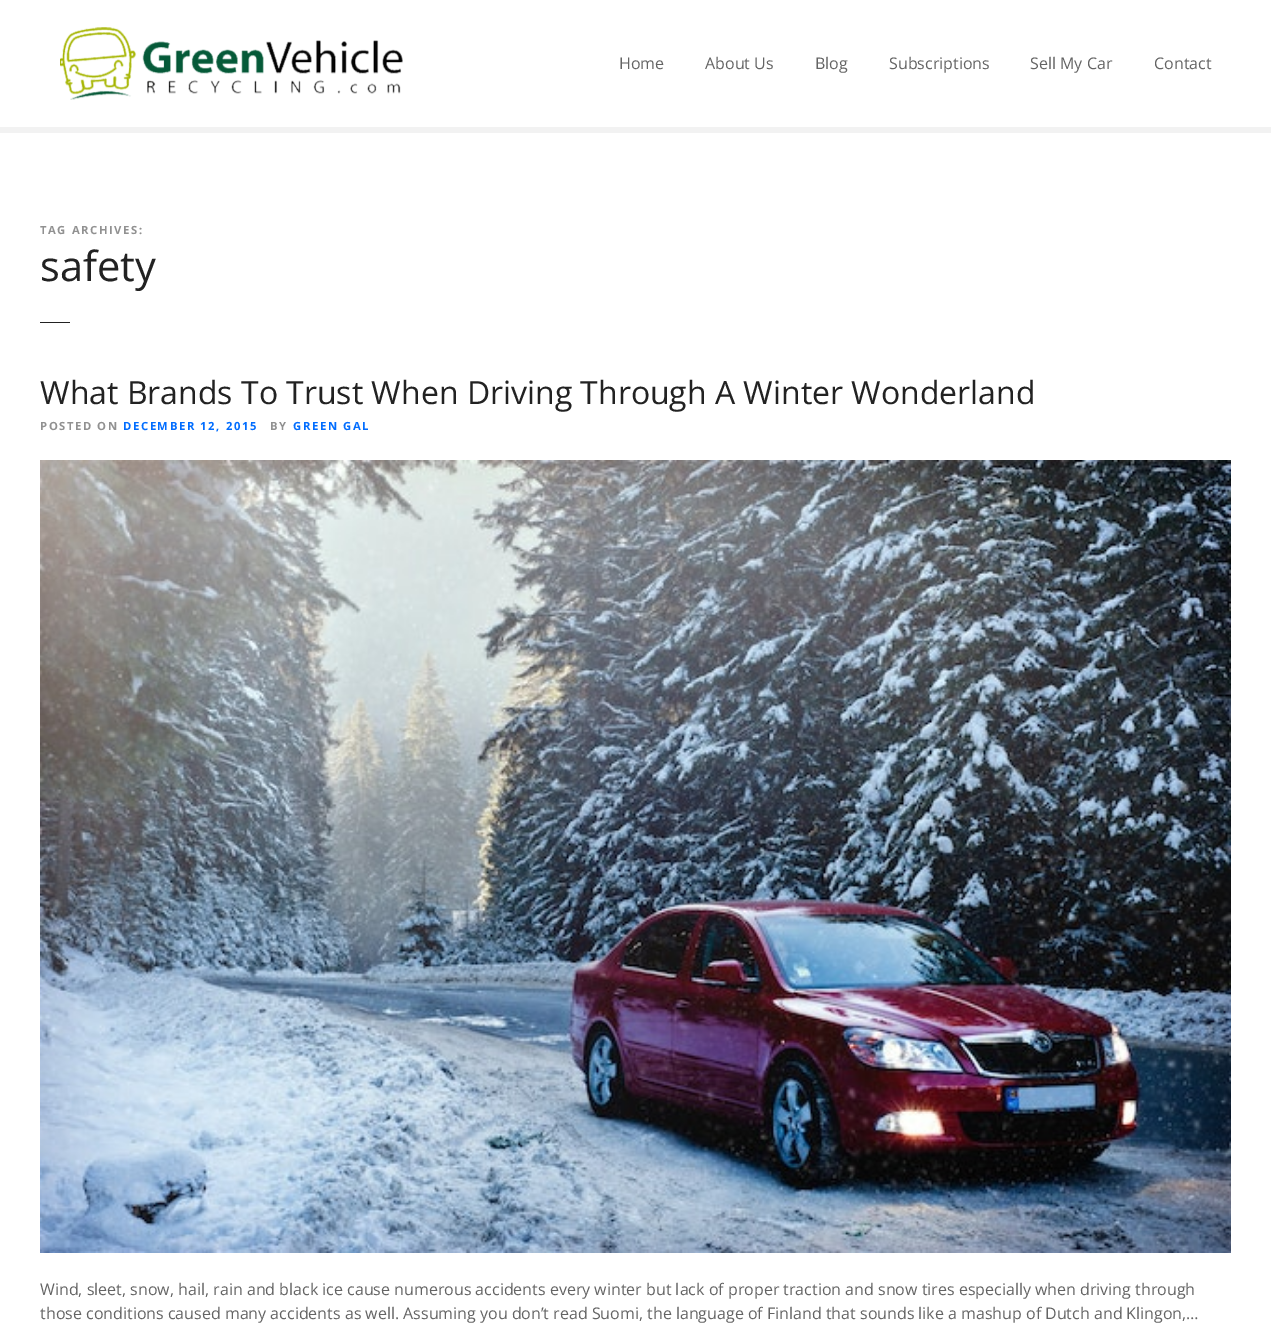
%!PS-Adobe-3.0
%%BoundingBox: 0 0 1271 1323
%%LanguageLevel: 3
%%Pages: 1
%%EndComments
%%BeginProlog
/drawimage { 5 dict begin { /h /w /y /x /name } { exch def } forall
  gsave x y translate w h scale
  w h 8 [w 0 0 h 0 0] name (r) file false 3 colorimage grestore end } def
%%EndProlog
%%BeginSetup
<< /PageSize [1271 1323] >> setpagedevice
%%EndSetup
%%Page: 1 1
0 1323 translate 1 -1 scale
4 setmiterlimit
1 setgray
0 0 1271 1323 rectfill
(images/1.raw) 60 27 343 73 drawimage
0.949 setgray
0 127 1271 6 rectfill
0.133 setgray
40 322 30 1 rectfill
(images/2.raw) 40 460 1191 793 drawimage
/OpenSans-Regular [16 0 0 -16 0 0] selectfont
0.392 setgray
619 69 moveto (Home) show
705 69 moveto (About Us) show
815 69 moveto (Blog) show
889 69 moveto (Subscriptions) show
1030 69 moveto (Sell My Car) show
1154 69 moveto (Contact) show
/OpenSans-Bold [11.25 0 0 -11.25 0 0] selectfont
0.569 setgray
40 234 moveto 1.6 0 (TAG ARCHIVES:) ashow
/OpenSans-Regular [41.5 0 0 -41.5 0 0] selectfont
0.133 setgray
40 281 moveto (safety) show
/OpenSans-Regular [32 0 0 -32 0 0] selectfont
40 404 moveto (What Brands To Trust When Driving Through A Winter Wonderland) show
/OpenSans-Bold [11.25 0 0 -11.25 0 0] selectfont
0.569 setgray
40 430 moveto 1.6 0 (POSTED ON) ashow
0.004 0.427 1 setrgbcolor
123 430 moveto 1.6 0 (DECEMBER 12, 2015) ashow
0.569 setgray
270 430 moveto 1.6 0 (BY) ashow
0.004 0.427 1 setrgbcolor
293 430 moveto 1.6 0 (GREEN GAL) ashow
/OpenSans-Regular [16 0 0 -16 0 0] selectfont
0.392 setgray
40 1295 moveto (Wind, sleet, snow, hail, rain and black ice cause numerous accidents every winter but lack of proper traction and snow tires especially when driving through) show
40 1319 moveto (those conditions caused many accidents as well. Assuming you don’t read Suomi, the language of Finland that sounds like a mashup of Dutch and Klingon,…) show
showpage
%%EOF
